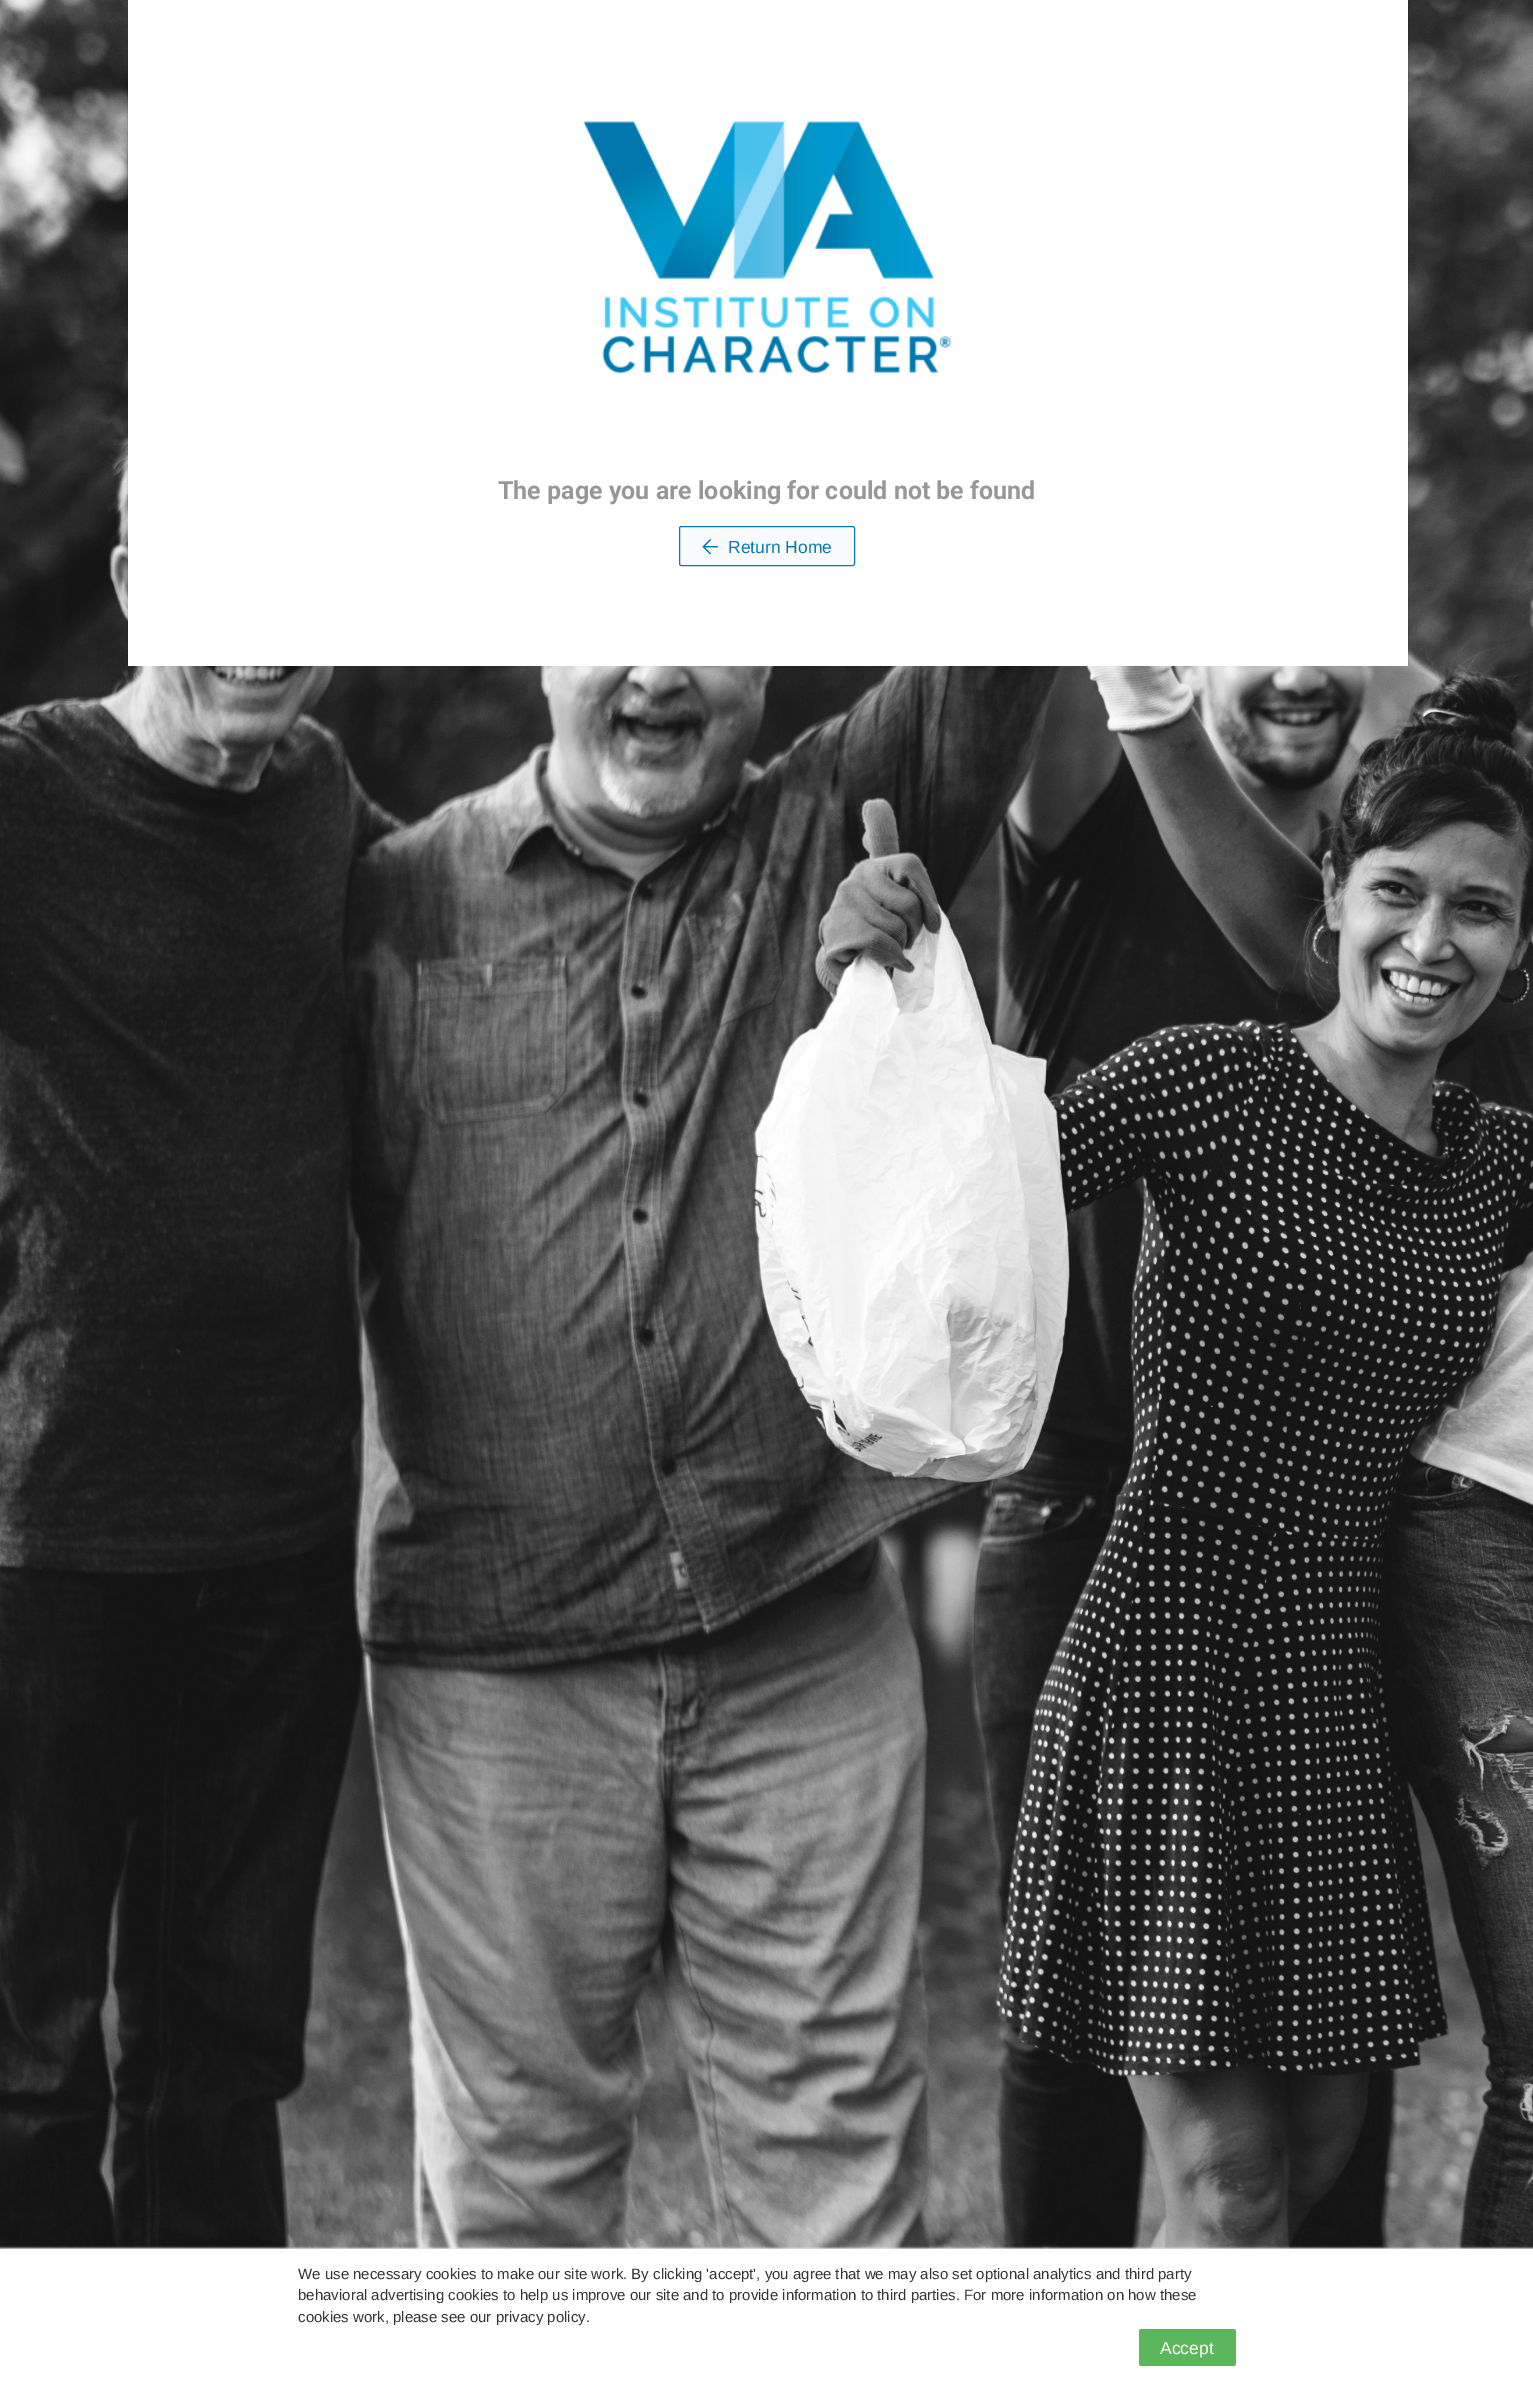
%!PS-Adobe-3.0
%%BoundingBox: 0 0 1533 2381
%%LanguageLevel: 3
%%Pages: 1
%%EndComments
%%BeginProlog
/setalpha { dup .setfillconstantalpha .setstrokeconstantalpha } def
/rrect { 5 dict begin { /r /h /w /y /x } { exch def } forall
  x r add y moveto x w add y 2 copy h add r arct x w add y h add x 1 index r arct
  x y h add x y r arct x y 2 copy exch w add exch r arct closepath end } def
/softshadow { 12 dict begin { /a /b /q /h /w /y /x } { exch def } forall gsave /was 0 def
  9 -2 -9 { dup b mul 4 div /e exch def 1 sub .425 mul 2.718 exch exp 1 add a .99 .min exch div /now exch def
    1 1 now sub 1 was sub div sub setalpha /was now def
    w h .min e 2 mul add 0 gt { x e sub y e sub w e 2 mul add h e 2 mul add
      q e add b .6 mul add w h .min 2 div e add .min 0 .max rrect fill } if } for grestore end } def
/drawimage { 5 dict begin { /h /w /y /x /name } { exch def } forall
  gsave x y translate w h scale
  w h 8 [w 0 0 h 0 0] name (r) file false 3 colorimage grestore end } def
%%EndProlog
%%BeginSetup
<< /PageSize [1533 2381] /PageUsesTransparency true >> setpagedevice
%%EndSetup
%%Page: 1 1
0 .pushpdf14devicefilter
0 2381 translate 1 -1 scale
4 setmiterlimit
1 setgray
0 0 1533 2381 rectfill
(images/1.raw) 0 0 1533 2249 drawimage
0 setgray
133 3 1275 661 0 1 0.25 softshadow
128 3 1275 661 0 1 0.25 softshadow
1 setgray
128 0 1280 666 rectfill
(images/2.raw) 583 121 369 253 drawimage
0.973 0.98 0.988 setrgbcolor
679.5 526.5 175 39 2 rrect gsave fill grestore
0.043 0.471 0.686 setrgbcolor
stroke
(images/3.raw) 702 539 16 16 drawimage
0.914 setgray
0 2248 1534 132 0 1 1 softshadow
1 setgray
0 2249 1533 132 rectfill
0.357 0.714 0.361 setrgbcolor
1139 2329 97 37 2.5 rrect fill
/Roboto-Bold [25 0 0 -25 0 0] selectfont
0.588 0.592 0.592 setrgbcolor
498 499 moveto (The page you are looking for could not be found) show
/LiberationSans-Regular [17.5 0 0 -17.5 0 0] selectfont
0.043 0.471 0.686 setrgbcolor
728 553 moveto (Return Home) show
/LiberationSans-Regular [15 0 0 -15 0 0] selectfont
0.2 setgray
298 2279 moveto (We use necessary cookies to make our site work. By clicking 'accept', you agree that we may also set optional analytics and third party) show
298 2300 moveto (behavioral advertising cookies to help us improve our site and to provide information to third parties. For more information on how these) show
298 2322 moveto (cookies work, please see our privacy policy.) show
/LiberationSans-Regular [17.5 0 0 -17.5 0 0] selectfont
1 setgray
1160 2354 moveto (Accept) show
.poppdf14devicefilter showpage
%%EOF
